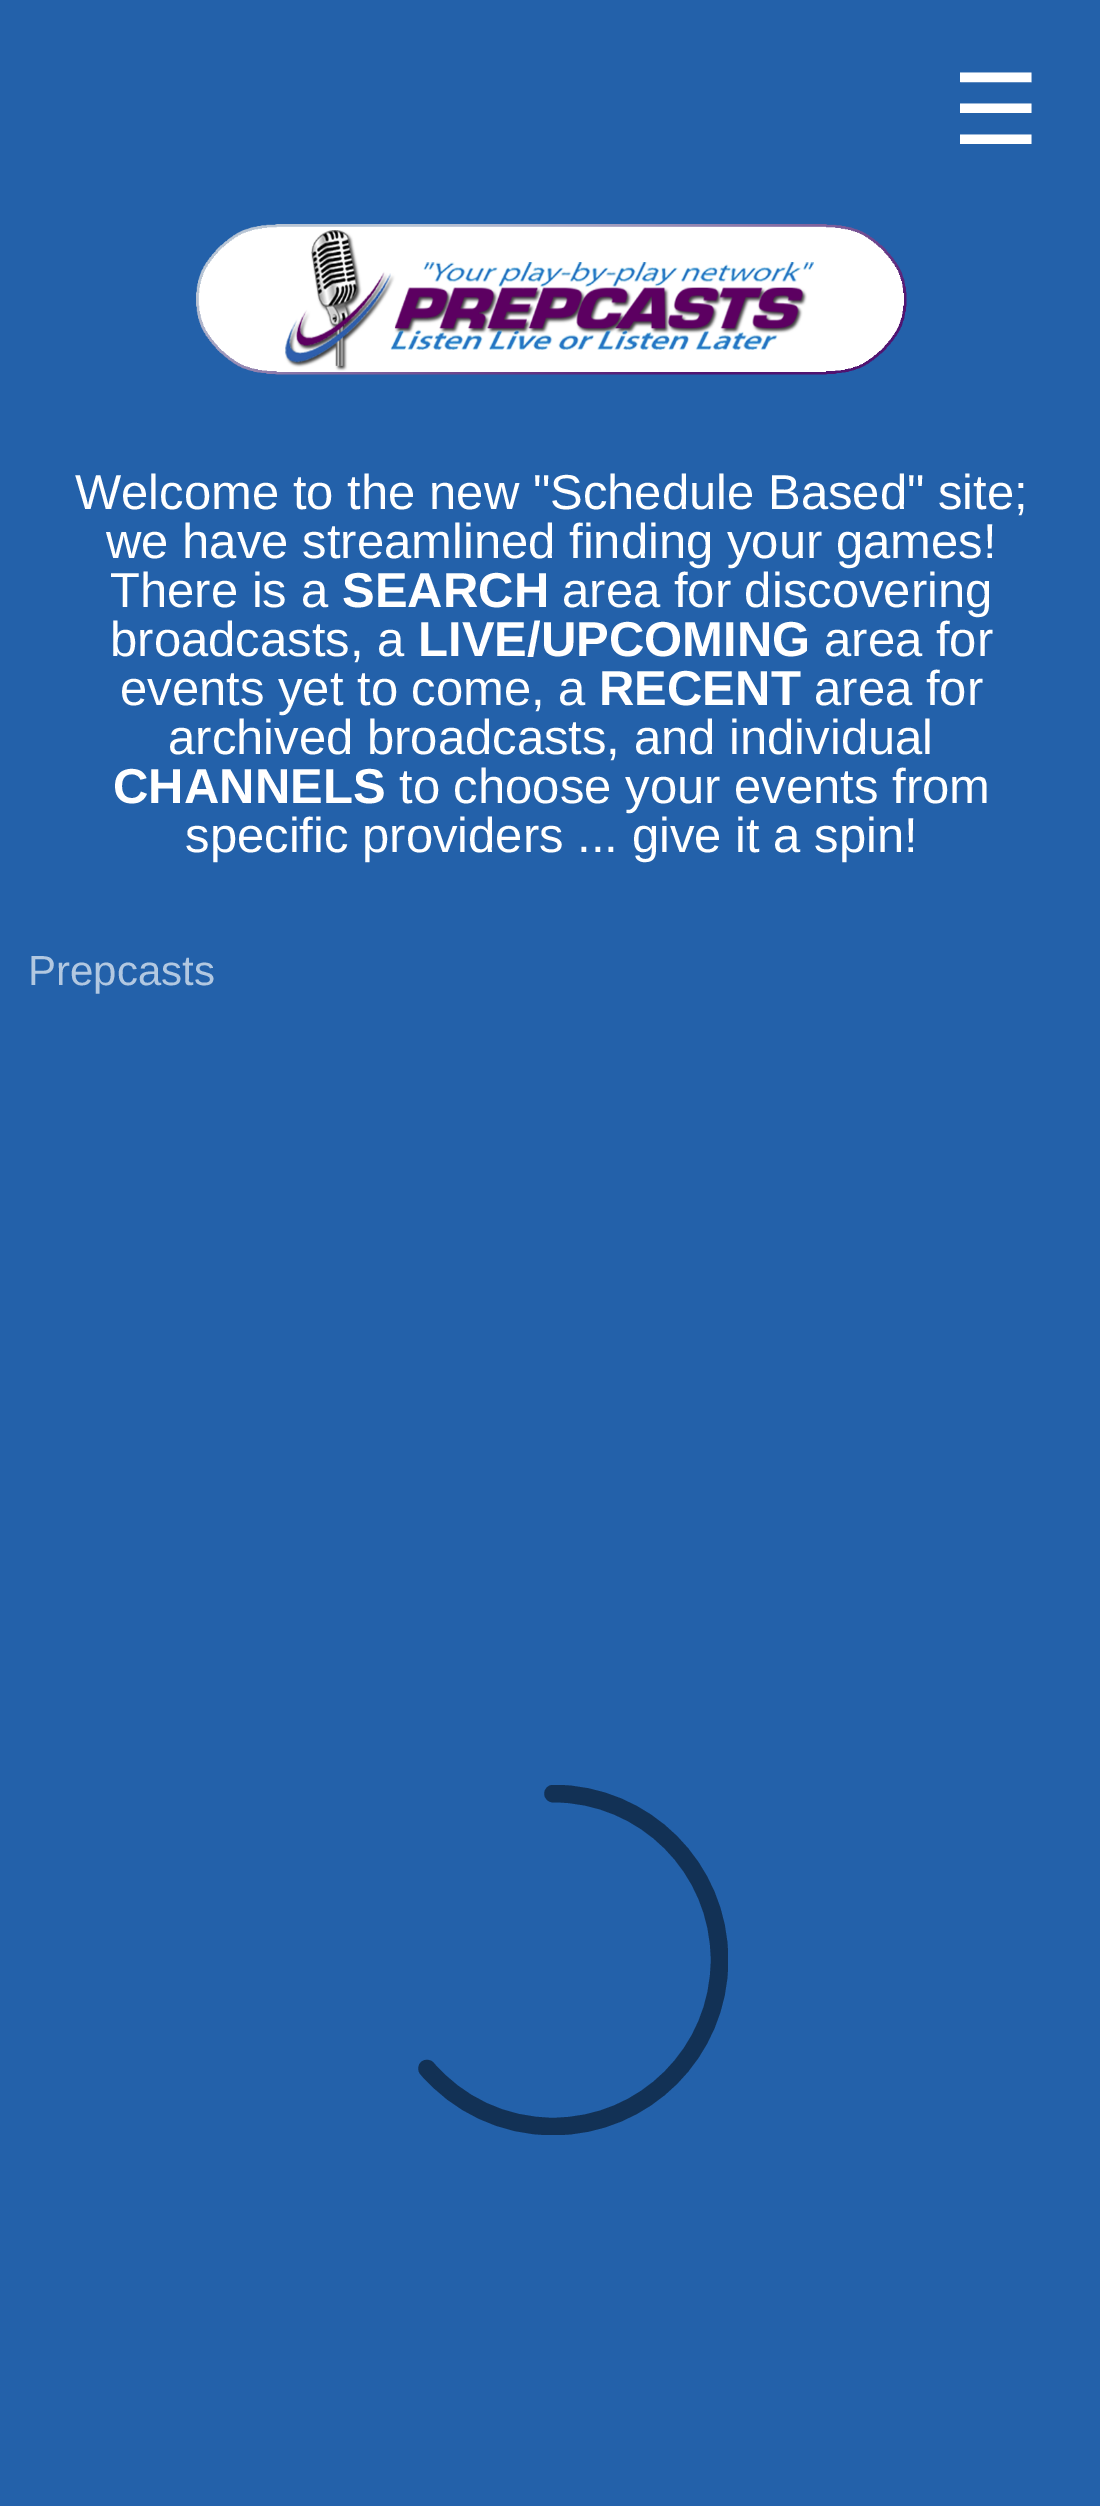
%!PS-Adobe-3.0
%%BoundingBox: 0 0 1100 2506
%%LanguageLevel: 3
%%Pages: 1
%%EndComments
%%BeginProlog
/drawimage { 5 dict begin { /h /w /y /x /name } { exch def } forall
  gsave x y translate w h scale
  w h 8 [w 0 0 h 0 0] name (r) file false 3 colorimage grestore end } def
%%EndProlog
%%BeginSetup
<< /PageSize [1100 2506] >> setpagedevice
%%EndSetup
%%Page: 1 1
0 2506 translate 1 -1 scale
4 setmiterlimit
0.137 0.38 0.667 setrgbcolor
0 0 1100 2506 rectfill
(images/1.raw) 196 224 711 151 drawimage
gsave
378 1785 350 350 rectclip
0.071 0.192 0.333 setrgbcolor
17.5 setlinewidth
1 setlinecap
newpath 553 1793.5 moveto 645 1793.5 719.5 1868 719.5 1960 curveto 719.5 2052 645 2126.5 553 2126.5 curveto 502.5 2126.5 457.5 2104 427 2068.5 curveto stroke
grestore
/DejaVuSans-Regular [98 0 0 -98 0 0] selectfont
1 setgray
952 144 moveto (☰) show
/LiberationSans-Regular [49 0 0 -49 0 0] selectfont
75 509 moveto (Welcome to the new "Schedule Based" site;) show
106 558 moveto (we have streamlined finding your games!) show
110 607 moveto (There is a) show
/LiberationSans-Bold [49 0 0 -49 0 0] selectfont
342 607 moveto (SEARCH) show
/LiberationSans-Regular [49 0 0 -49 0 0] selectfont
562 607 moveto (area for discovering) show
110 656 moveto (broadcasts, a) show
/LiberationSans-Bold [49 0 0 -49 0 0] selectfont
418 656 moveto (LIVE/UPCOMING) show
/LiberationSans-Regular [49 0 0 -49 0 0] selectfont
824 656 moveto (area for) show
120 705 moveto (events yet to come, a) show
/LiberationSans-Bold [49 0 0 -49 0 0] selectfont
599 705 moveto (RECENT) show
/LiberationSans-Regular [49 0 0 -49 0 0] selectfont
814 705 moveto (area for) show
168 754 moveto (archived broadcasts, and individual) show
/LiberationSans-Bold [49 0 0 -49 0 0] selectfont
113 803 moveto (CHANNELS) show
/LiberationSans-Regular [49 0 0 -49 0 0] selectfont
399 803 moveto (to choose your events from) show
185 852 moveto (specific providers ... give it a spin!) show
/LiberationSans-Regular [42 0 0 -42 0 0] selectfont
0.698 0.784 0.882 setrgbcolor
28 985 moveto (Prepcasts) show
showpage
%%EOF
